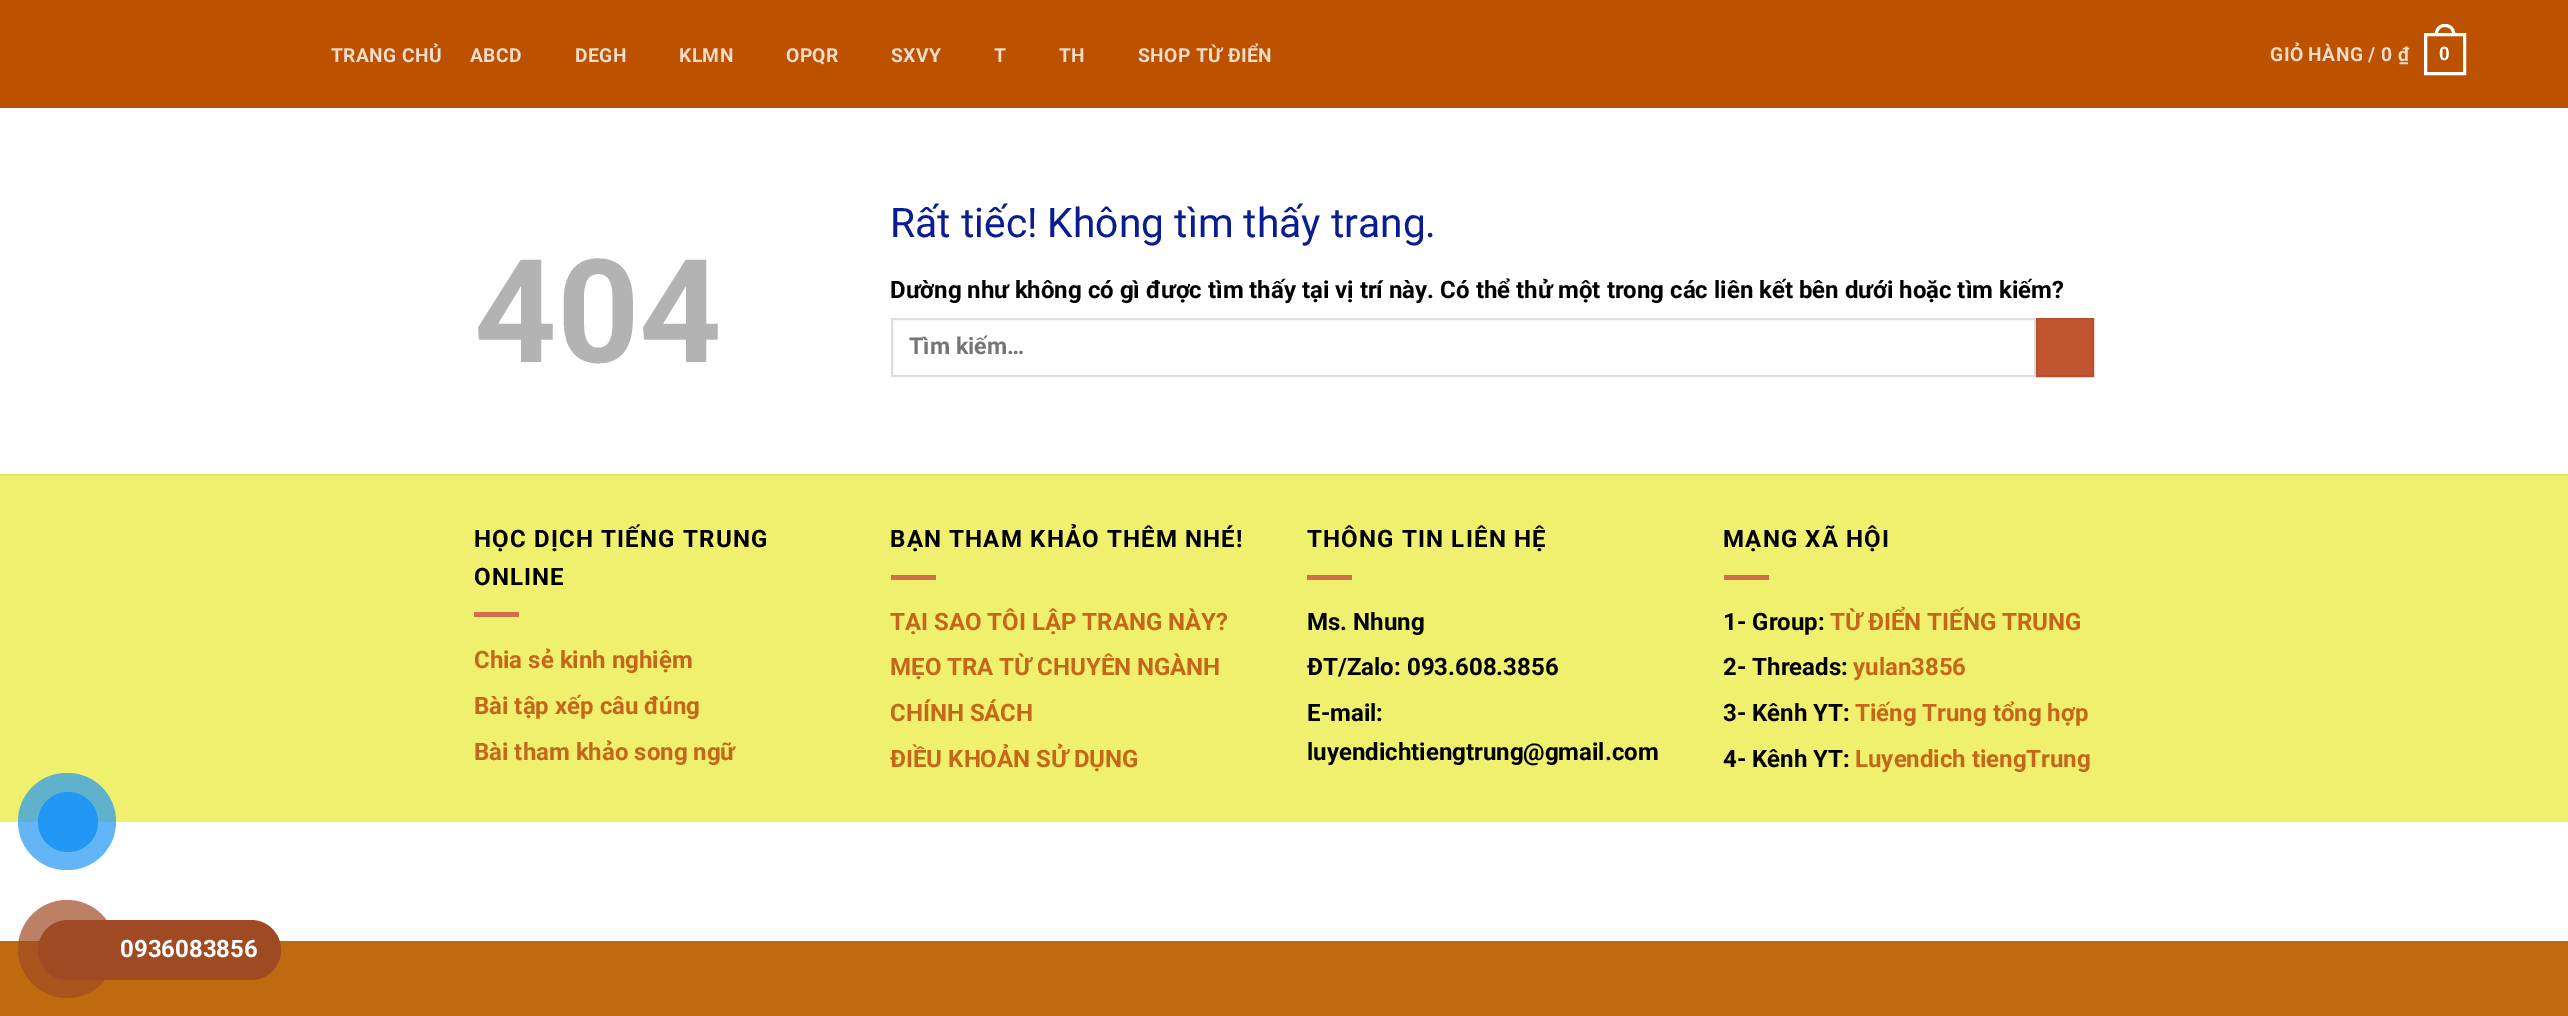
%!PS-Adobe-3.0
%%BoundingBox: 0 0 2568 1016
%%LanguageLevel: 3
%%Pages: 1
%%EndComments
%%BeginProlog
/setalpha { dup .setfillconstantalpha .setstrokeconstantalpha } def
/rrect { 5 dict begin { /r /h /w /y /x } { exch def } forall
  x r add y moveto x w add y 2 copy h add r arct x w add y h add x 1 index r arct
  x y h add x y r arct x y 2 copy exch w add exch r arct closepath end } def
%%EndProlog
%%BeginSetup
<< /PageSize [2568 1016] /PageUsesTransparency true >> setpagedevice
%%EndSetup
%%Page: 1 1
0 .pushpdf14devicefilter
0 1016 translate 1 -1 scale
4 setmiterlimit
0.741 0.42 0.055 setrgbcolor
0 0 2568 1016 rectfill
1 setgray
0 108 2568 833 rectfill
0.737 0.318 0 setrgbcolor
0 0 2568 108 rectfill
1 setgray
3 setlinewidth
2425.5 34.5 39 39 rectstroke
newpath 2445 24 moveto 2452 24 2455.5 29.5 2455.5 36 curveto 2434.5 36 lineto 2434.5 29.5 2438 24 2445 24 curveto closepath 2445 27 moveto 2450.5 27 2452.5 31.5 2452.5 36 curveto 2437.5 36 lineto 2437.5 31.5 2439.5 27 2445 27 curveto closepath eofill
0.867 setgray
2 setlinewidth
892 319 1143 57 rectstroke
0.753 0.333 0.188 setrgbcolor
newpath 2037 319 moveto 2093 319 lineto 2093 376 lineto 2037 376 lineto closepath gsave fill grestore
0.714 0.318 0.18 setrgbcolor
stroke
0.941 0.941 0.435 setrgbcolor
0 476 2568 346 rectfill
0.894 0.894 0.412 setrgbcolor
0 474 2568 2 rectfill
0.824 0.431 0.294 setrgbcolor
474 612 45 5 rectfill
891 575 45 5 rectfill
1307 575 45 5 rectfill
1724 575 45 5 rectfill
0.7 setalpha
0.129 0.588 0.953 setrgbcolor
18 773 98 97 48.5 rrect fill
1 setalpha
newpath 68 822 30 0 360 arc closepath fill
0.627 0.29 0.141 setrgbcolor
45 920 236 60 30 rrect fill
0.7 setalpha
newpath 67 949 49 0 360 arc closepath fill
1 setalpha
newpath 68 950 30 0 360 arc closepath fill
/Roboto-Bold [19.25 0 0 -19.25 0 0] selectfont
0.949 0.863 0.8 setrgbcolor
331 62 moveto 0.4 0 (TRANG CHỦ) ashow
470 62 moveto 0.4 0 (ABCD) ashow
575 62 moveto 0.4 0 (DEGH) ashow
679 62 moveto 0.4 0 (KLMN) ashow
786 62 moveto 0.4 0 (OPQR) ashow
0.737 0.318 0 setrgbcolor
newpath 835.5 76.5 moveto 811.5 76.5 lineto 823.5 64.5 lineto closepath fill
0.949 0.863 0.8 setrgbcolor
891 62 moveto 0.4 0 (SXVY) ashow
994 62 moveto 0.4 0 (T) ashow
1059 62 moveto 0.4 0 (TH) ashow
1138 62 moveto 0.4 0 (SHOP TỪ ĐIỂN) ashow
2270 61 moveto 0.4 0 (GIỎ HÀNG / 0 ₫) ashow
/LiberationSans-Bold [19.25 0 0 -19.25 0 0] selectfont
1 setgray
2439 60 moveto 0.4 0 (0) ashow
/Roboto-Bold [144 0 0 -144 0 0] selectfont
0.702 setgray
474 362 moveto (404) show
/Roboto-Regular [40.75 0 0 -40.75 0 0] selectfont
0.039 0.11 0.576 setrgbcolor
890 237 moveto (Rất tiếc! Không tìm thấy trang.) show
/Roboto-Bold [24 0 0 -24 0 0] selectfont
0 setgray
890 298 moveto (Dường như không có gì được tìm thấy tại vị trí này. Có thể thử một trong các liên kết bên dưới hoặc tìm kiếm?) show
/Roboto-Bold [23.25 0 0 -23.25 0 0] selectfont
0.459 setgray
909 354 moveto (Tìm kiếm…) show
/Roboto-Bold [24 0 0 -24 0 0] selectfont
0 setgray
474 547 moveto 1.2 0 (HỌC DỊCH TIẾNG TRUNG) ashow
474 585 moveto 1.2 0 (ONLINE) ashow
0.773 0.4 0.098 setrgbcolor
474 668 moveto (Chia sẻ kinh nghiệm) show
474 714 moveto (Bài tập xếp câu đúng) show
474 760 moveto (Bài tham khảo song ngữ) show
0 setgray
890 547 moveto 1.2 0 (BẠN THAM KHẢO THÊM NHÉ!) ashow
0.773 0.4 0.098 setrgbcolor
890 630 moveto (TẠI SAO TÔI LẬP TRANG NÀY?) show
890 675 moveto (MẸO TRA TỪ CHUYÊN NGÀNH) show
890 721 moveto (CHÍNH SÁCH) show
890 767 moveto (ĐIỀU KHOẢN SỬ DỤNG) show
0 setgray
1307 547 moveto 1.2 0 (THÔNG TIN LIÊN HỆ) ashow
1307 630 moveto (Ms. Nhung) show
1307 675 moveto (ĐT/Zalo: 093.608.3856) show
1307 721 moveto (E-mail:) show
1307 760 moveto (luyendichtiengtrung@gmail.com) show
1723 547 moveto 1.2 0 (MẠNG XÃ HỘI) ashow
1723 630 moveto (1- Group:) show
0.773 0.4 0.098 setrgbcolor
1830 630 moveto (TỪ ĐIỂN TIẾNG TRUNG) show
0 setgray
1723 675 moveto (2- Threads:) show
0.773 0.4 0.098 setrgbcolor
1853 675 moveto (yulan3856) show
0 setgray
1723 721 moveto (3- Kênh YT:) show
0.773 0.4 0.098 setrgbcolor
1855 721 moveto (Tiếng Trung tổng hợp) show
0 setgray
1723 767 moveto (4- Kênh YT:) show
0.773 0.4 0.098 setrgbcolor
1855 767 moveto (Luyendich tiengTrung) show
1 setgray
120 957 moveto (0936083856) show
.poppdf14devicefilter showpage
%%EOF
